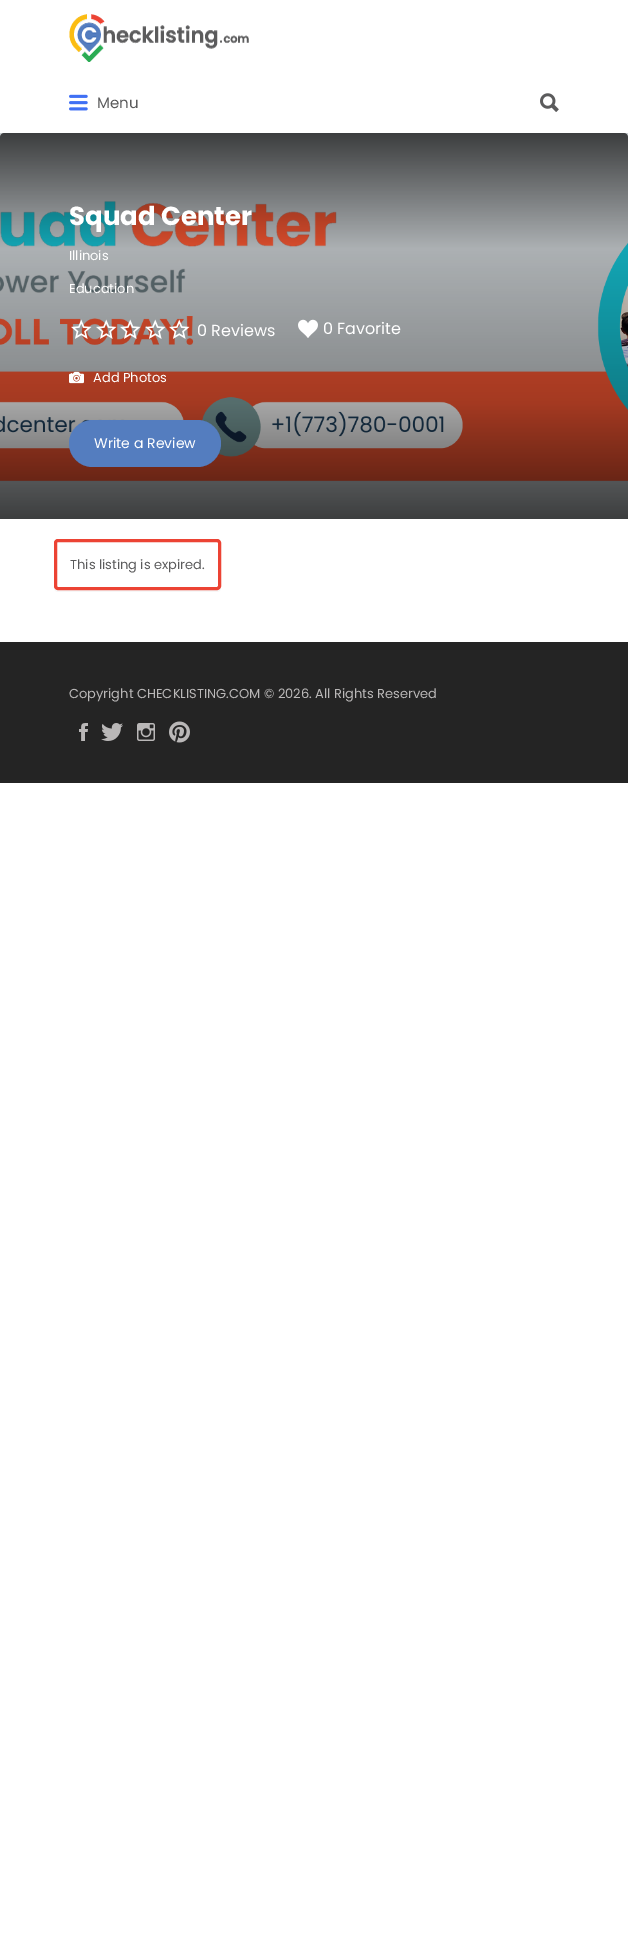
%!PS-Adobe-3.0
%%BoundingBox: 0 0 628 1947
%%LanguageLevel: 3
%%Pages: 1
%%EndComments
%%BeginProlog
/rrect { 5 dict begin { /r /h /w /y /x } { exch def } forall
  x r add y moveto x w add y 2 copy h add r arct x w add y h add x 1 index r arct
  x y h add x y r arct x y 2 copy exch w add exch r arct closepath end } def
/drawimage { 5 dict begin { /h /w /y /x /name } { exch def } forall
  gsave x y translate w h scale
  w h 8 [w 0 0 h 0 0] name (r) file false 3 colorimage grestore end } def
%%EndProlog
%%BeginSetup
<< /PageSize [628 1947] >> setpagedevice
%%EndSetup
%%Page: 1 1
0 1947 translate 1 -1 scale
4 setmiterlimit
1 setgray
0 0 628 1947 rectfill
(images/1.raw) 69 14 180 48 drawimage
(images/2.raw) 69 94 19 17 drawimage
(images/3.raw) 540 93 19 19 drawimage
(images/4.raw) 0 133 628 386 drawimage
(images/5.raw) 71 319 21 20 drawimage
(images/6.raw) 96 319 21 20 drawimage
(images/7.raw) 120 319 21 20 drawimage
(images/8.raw) 145 319 21 20 drawimage
(images/9.raw) 169 319 21 20 drawimage
(images/10.raw) 298 319 20 19 drawimage
(images/11.raw) 69 371 15 13 drawimage
0.329 0.49 0.749 setrgbcolor
69 420 152 47 23.5 rrect fill
0.969 setgray
newpath 54 586 moveto 54 588 lineto 54 590 56 592 58 592 curveto 217 592 lineto 219 592 221 590 221 588 curveto 221 586 lineto 221 588 219 590 217 590 curveto 58 590 lineto 56 590 54 588 54 586 curveto closepath fill
0.925 0.263 0.204 setrgbcolor
3 setlinewidth
55.5 540.5 164 48 2.5 rrect stroke
0.141 setgray
0 642 628 141 rectfill
(images/12.raw) 79 723 9 18 drawimage
(images/13.raw) 101 723 22 18 drawimage
(images/14.raw) 137 723 18 18 drawimage
(images/15.raw) 169 721 21 22 drawimage
/Poppins-Regular [15 0 0 -15 0 0] selectfont
0.357 0.357 0.361 setrgbcolor
97 108 moveto (Menu) show
/Poppins-Bold [26 0 0 -26 0 0] selectfont
1 setgray
69 225 moveto (Squad Center) show
/Poppins-Regular [13 0 0 -13 0 0] selectfont
69 260 moveto (Illinois) show
69 293 moveto (Education) show
/Poppins-Regular [16 0 0 -16 0 0] selectfont
197 336 moveto (0 Reviews) show
323 334 moveto (0 Favorite) show
/Poppins-Regular [13 0 0 -13 0 0] selectfont
93 382 moveto (Add Photos) show
/Poppins-Regular [14 0 0 -14 0 0] selectfont
94 448 moveto (Write a Review) show
/Poppins-Regular [13 0 0 -13 0 0] selectfont
0.357 0.357 0.361 setrgbcolor
70 569 moveto (This listing is expired.) show
0.729 0.722 0.722 setrgbcolor
69 698 moveto (Copyright CHECKLISTING.COM © 2026. All Rights Reserved) show
showpage
%%EOF
